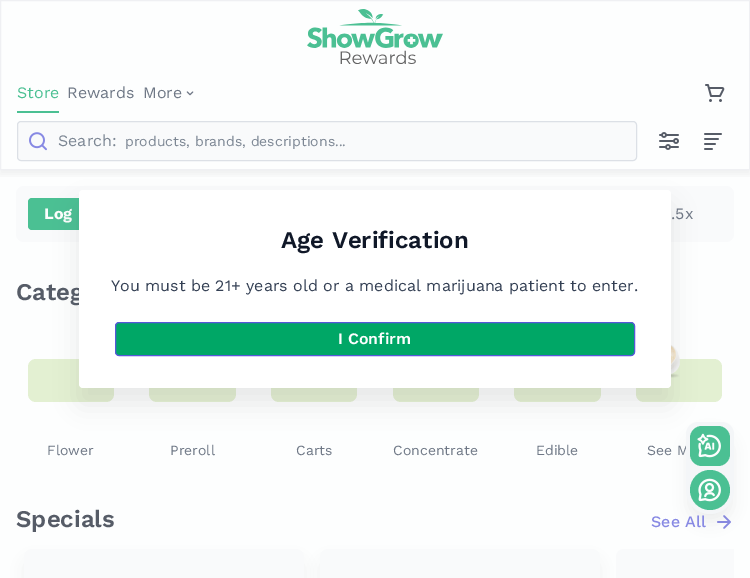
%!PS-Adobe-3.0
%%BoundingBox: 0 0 750 578
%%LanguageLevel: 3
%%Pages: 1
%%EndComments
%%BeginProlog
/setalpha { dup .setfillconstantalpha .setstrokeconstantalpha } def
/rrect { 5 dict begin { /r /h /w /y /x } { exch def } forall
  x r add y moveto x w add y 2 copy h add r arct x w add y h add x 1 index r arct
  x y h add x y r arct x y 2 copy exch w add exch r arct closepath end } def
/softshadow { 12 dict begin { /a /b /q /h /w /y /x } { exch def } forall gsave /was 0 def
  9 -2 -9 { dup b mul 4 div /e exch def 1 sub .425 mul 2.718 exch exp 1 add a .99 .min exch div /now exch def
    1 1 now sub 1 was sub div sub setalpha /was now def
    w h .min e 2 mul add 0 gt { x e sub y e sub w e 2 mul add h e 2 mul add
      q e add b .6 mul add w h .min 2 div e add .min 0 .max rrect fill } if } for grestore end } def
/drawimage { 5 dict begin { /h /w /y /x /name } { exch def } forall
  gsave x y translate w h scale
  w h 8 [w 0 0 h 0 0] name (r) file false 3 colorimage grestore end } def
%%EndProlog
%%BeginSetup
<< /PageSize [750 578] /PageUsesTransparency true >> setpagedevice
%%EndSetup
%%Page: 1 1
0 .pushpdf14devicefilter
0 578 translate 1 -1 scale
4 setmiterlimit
0.992 0.996 0.996 setrgbcolor
0 0 750 578 rectfill
0.976 0.98 0.984 setrgbcolor
16 186 718 56 8 rrect fill
gsave
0 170 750 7 rectclip
0.424 0.427 0.435 setrgbcolor
0 4 750 170 0 4 0.1 softshadow
grestore
0.937 0.941 0.953 setrgbcolor
0.5 0.5 749 169 rectstroke
(images/1.raw) 307 9 136 55 drawimage
0.294 0.753 0.576 setrgbcolor
17 111 42 2 rectfill
(images/2.raw) 186 91 8 5 drawimage
(images/3.raw) 705 84 20 18 drawimage
0.976 0.98 0.984 setrgbcolor
17.5 121.5 619 39 3.5 rrect gsave fill grestore
0.863 0.878 0.902 setrgbcolor
stroke
(images/4.raw) 29 132 18 19 drawimage
(images/5.raw) 659 132 20 18 drawimage
(images/6.raw) 704 133 18 17 drawimage
0.294 0.753 0.576 setrgbcolor
28 198 80 32 4 rrect fill
0.89 0.941 0.824 setrgbcolor
28 359 86 43 8 rrect fill
149 359 87 43 8 rrect fill
271 359 86 43 8 rrect fill
393 359 86 43 8 rrect fill
514 359 87 43 8 rrect fill
636 359 86 43 8 rrect fill
(images/7.raw) 671 344 9 34 drawimage
0.529 0.537 0.89 setrgbcolor
1.7 setlinewidth
1 setlinecap
1 setlinejoin
newpath 718 522 moveto 730 522 lineto 730 522 moveto 724 516 lineto 730 522 moveto 724 528 lineto stroke
0.294 setgray
27 562 274 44 5 7.5 0.1 softshadow
0.976 0.98 0.984 setrgbcolor
24 549 280 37 8 rrect fill
0.294 setgray
323 562 274 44 5 7.5 0.1 softshadow
0.976 0.98 0.984 setrgbcolor
320 549 280 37 8 rrect fill
newpath 624 549 moveto 734 549 lineto 734 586 lineto 624 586 lineto 619.5 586 616 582.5 616 578 curveto 616 557 lineto 616 552.5 619.5 549 624 549 curveto closepath fill
0.294 setgray
689 435 42 86 21 7.5 0.1 softshadow
/WorkSans-Regular [16 0 0 -16 0 0] selectfont
0.294 0.753 0.576 setrgbcolor
17 98 moveto (Store) show
0.435 0.471 0.525 setrgbcolor
67 98 moveto (Rewards) show
143 98 moveto (More) show
0.486 0.525 0.576 setrgbcolor
58 146 moveto (Search:) show
/WorkSans-Regular [14 0 0 -14 0 0] selectfont
125 146 moveto (products, brands, descriptions...) show
/WorkSans-Bold [16 0 0 -16 0 0] selectfont
0.992 0.996 0.996 setrgbcolor
44 219 moveto (Log) show
/WorkSans-Regular [16 0 0 -16 0 0] selectfont
0.435 0.471 0.525 setrgbcolor
671 219 moveto (.5x) show
/WorkSans-SemiBold [24 0 0 -24 0 0] selectfont
0.337 0.361 0.404 setrgbcolor
16 300 moveto (Categ) show
/WorkSans-Regular [14 0 0 -14 0 0] selectfont
0.435 0.471 0.525 setrgbcolor
47 455 moveto (Flower) show
170 455 moveto (Preroll) show
296 455 moveto (Carts) show
393 455 moveto (Concentrate) show
536 455 moveto (Edible) show
647 455 moveto (See M) show
/WorkSans-SemiBold [24 0 0 -24 0 0] selectfont
0.337 0.361 0.404 setrgbcolor
16 527 moveto (Specials) show
/WorkSans-Medium [16 0 0 -16 0 0] selectfont
0.529 0.537 0.89 setrgbcolor
651 527 moveto (See All) show
0.957 0.965 0.973 setrgbcolor
newpath 698 422 moveto 722 422 lineto 728.5 422 734 427.5 734 434 curveto 734 490 lineto 734 503.5 723.5 514 710 514 curveto 696.5 514 686 503.5 686 490 curveto 686 434 lineto 686 427.5 691.5 422 698 422 curveto closepath fill
0.294 0.753 0.576 setrgbcolor
690 426 40 40 12 rrect fill
(images/8.raw) 697 433 24 25 drawimage
newpath 710 490 20 0 360 arc closepath fill
(images/9.raw) 698 478 23 24 drawimage
0.188 0.192 0.2 setrgbcolor
79 206 592 198 4 12 0.1 softshadow
1 setgray
79 190 592 198 4 rrect fill
/WorkSans-SemiBold [24 0 0 -24 0 0] selectfont
0.063 0.094 0.157 setrgbcolor
281 248 moveto (Age Verification) show
/WorkSans-Regular [16 0 0 -16 0 0] selectfont
0.204 0.251 0.329 setrgbcolor
111 291 moveto (You must be 21+ years old or a medical marijuana patient to enter.) show
0 0.655 0.4 setrgbcolor
115.5 322.5 519 33 3.5 rrect gsave fill grestore
0.337 0.345 0.851 setrgbcolor
1 setlinewidth
0 setlinecap
0 setlinejoin
stroke
/WorkSans-SemiBold [16 0 0 -16 0 0] selectfont
0.992 0.996 0.996 setrgbcolor
338 344 moveto (I Confirm) show
.poppdf14devicefilter showpage
%%EOF
